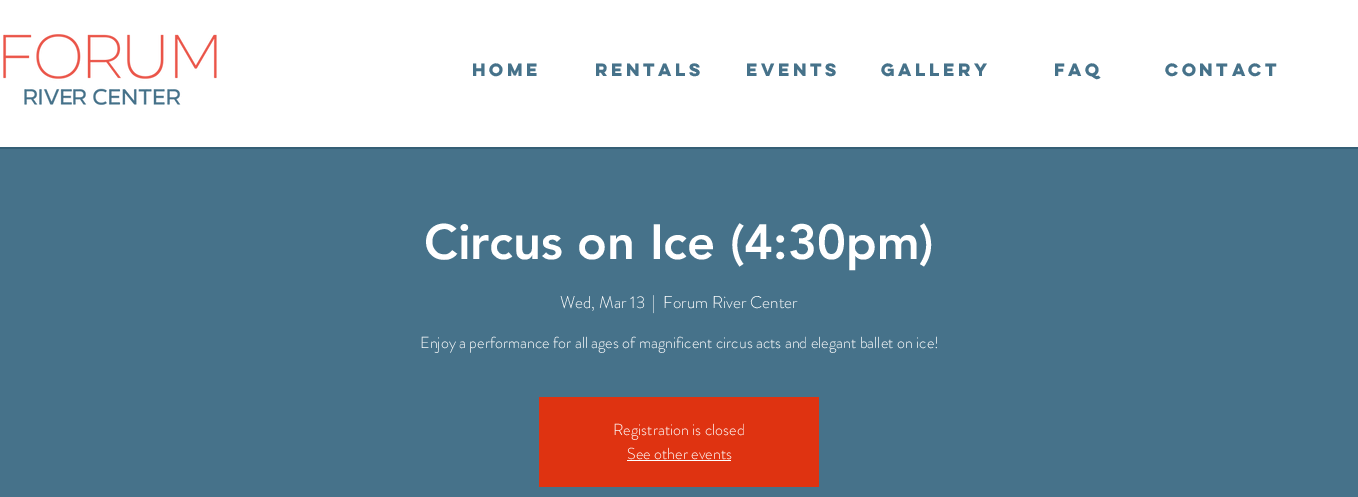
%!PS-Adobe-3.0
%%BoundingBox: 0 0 1358 497
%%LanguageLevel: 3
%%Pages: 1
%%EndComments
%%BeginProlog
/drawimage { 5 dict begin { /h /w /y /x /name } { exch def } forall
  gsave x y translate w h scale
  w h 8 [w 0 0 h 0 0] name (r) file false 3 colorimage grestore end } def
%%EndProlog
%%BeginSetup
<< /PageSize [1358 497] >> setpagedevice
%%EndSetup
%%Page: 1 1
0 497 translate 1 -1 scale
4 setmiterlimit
0.208 0.373 0.463 setrgbcolor
0 0 1358 497 rectfill
1 setgray
0 0 1358 147 rectfill
(images/1.raw) 3 34 214 71 drawimage
0.275 0.447 0.541 setrgbcolor
0 149 1358 348 rectfill
0.875 0.2 0.067 setrgbcolor
539 397 280 90 rectfill
1 setgray
627 460 104 1 rectfill
/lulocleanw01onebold-Bold [16 0 0 -16 0 0] selectfont
0.275 0.447 0.541 setrgbcolor
472 76 moveto (HOME) show
595 76 moveto (RENTALS) show
746 76 moveto (EVENTS) show
881 76 moveto (GALLERY) show
1054 76 moveto (FAQ) show
1165 76 moveto (CONTACT) show
/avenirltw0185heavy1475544-Black [49 0 0 -49 0 0] selectfont
1 setgray
424 259 moveto (Circus on Ice \(4:30pm\)) show
/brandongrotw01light-Light [17 0 0 -17 0 0] selectfont
560 308 moveto (Wed, Mar 13) show
652 308 moveto (|) show
663 308 moveto (Forum River Center) show
/brandongrotw01light-Light [16 0 0 -16 0 0] selectfont
420 348 moveto (Enjoy a performance for all ages of magnificent circus acts and elegant ballet on ice!) show
613 435 moveto (Registration is closed) show
627 459 moveto (See other events) show
showpage
%%EOF
